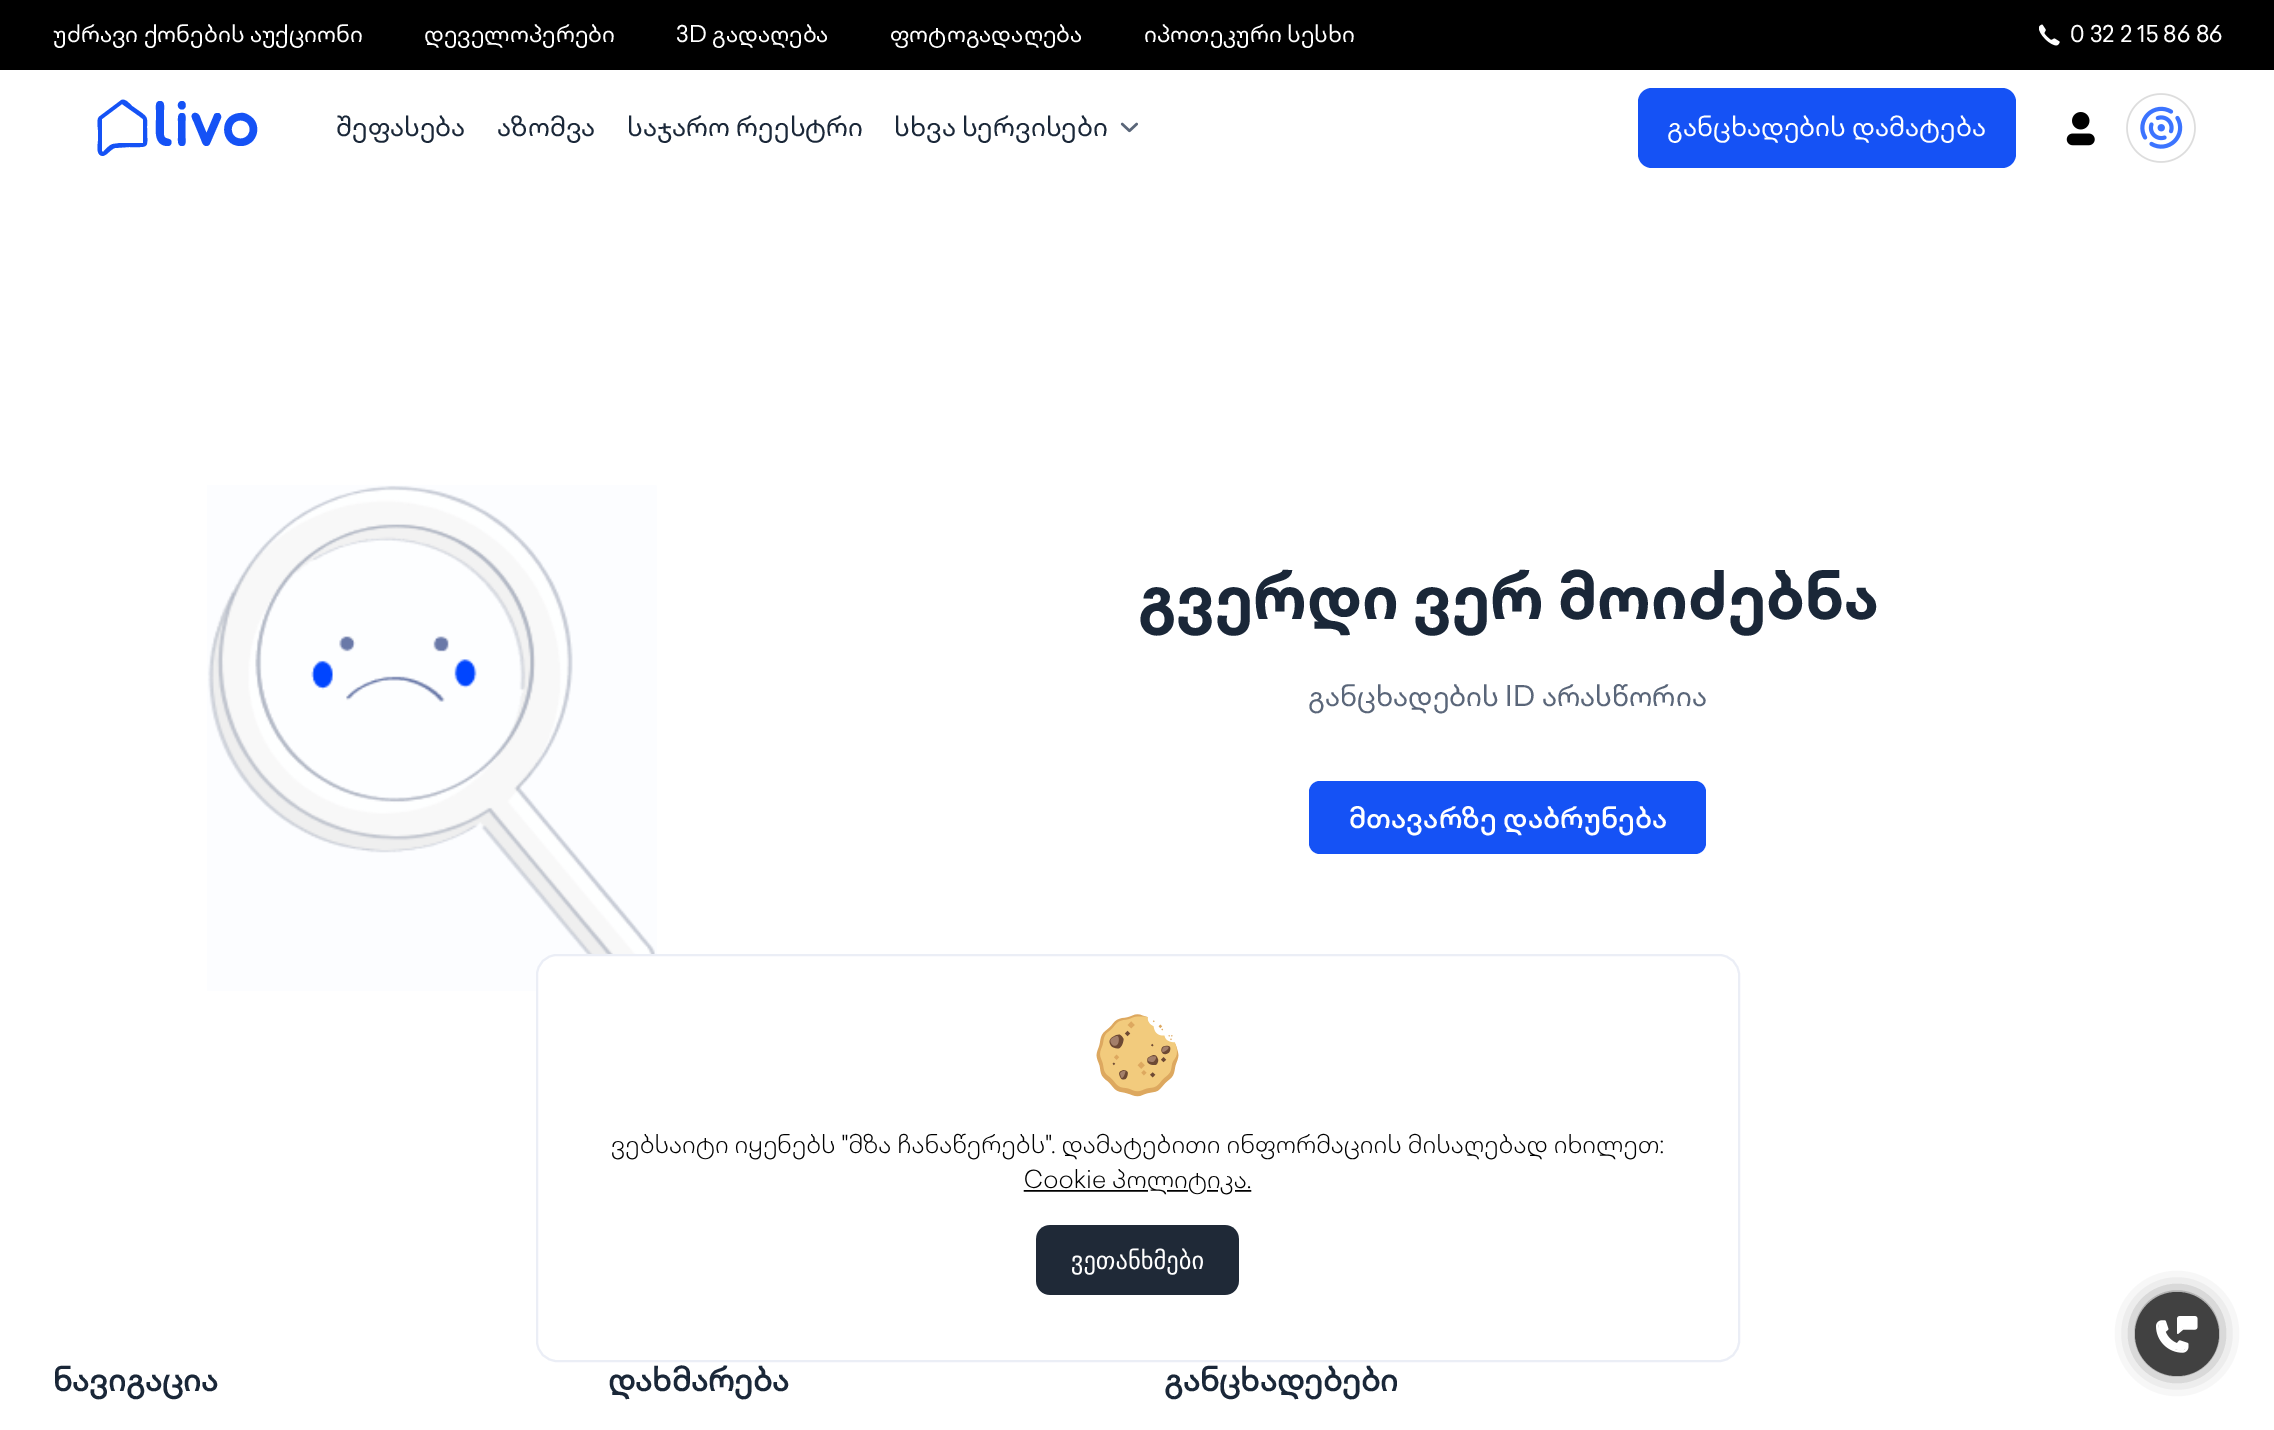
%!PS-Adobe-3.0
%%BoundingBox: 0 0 2274 1430
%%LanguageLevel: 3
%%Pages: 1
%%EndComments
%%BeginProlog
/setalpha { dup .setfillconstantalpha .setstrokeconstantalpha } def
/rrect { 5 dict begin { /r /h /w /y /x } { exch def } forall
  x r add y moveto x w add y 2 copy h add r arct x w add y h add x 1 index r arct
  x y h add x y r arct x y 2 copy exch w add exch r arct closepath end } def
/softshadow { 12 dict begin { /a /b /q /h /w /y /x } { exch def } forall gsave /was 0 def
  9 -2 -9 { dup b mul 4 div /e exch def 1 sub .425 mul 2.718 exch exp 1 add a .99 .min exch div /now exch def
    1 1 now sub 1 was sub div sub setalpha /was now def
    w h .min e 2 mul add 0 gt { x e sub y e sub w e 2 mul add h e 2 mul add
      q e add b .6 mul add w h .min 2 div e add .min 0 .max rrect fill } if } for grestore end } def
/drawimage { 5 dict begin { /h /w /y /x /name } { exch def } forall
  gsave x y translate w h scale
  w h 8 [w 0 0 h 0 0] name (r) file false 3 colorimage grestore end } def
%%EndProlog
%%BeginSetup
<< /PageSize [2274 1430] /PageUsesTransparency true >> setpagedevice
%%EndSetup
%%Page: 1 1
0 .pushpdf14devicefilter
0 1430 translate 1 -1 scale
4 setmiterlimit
1 setgray
0 0 2274 1430 rectfill
0 setgray
0 0 2274 70 rectfill
(images/1.raw) 2039 24 21 22 drawimage
0.082 0.322 0.961 setrgbcolor
newpath 100 116 moveto 96 118 98 127 98 130 curveto 98 141 lineto 98 144 96 152 100 155 curveto 105 159 110 149 115 148 curveto 129 147 lineto 151 147 147 149 147 127 curveto 147 118 148 118 142 113 curveto 132 106 lineto 129 103 124 97 120 101 curveto closepath 102 119 moveto 122 104 lineto 139 116 lineto 144 120 143 118 143 123 curveto 143 143 lineto 120 143 lineto 113 144 lineto 109 145 106 149 103 152 curveto 102 151 lineto closepath eofill
newpath 168 146 moveto 172 146 173 140 169 139 curveto 166 138 lineto 163 137 164 132 164 130 curveto 164 110 lineto 164 107 165 101 160 101 curveto 155 101 156 107 156 110 curveto 156 120 lineto 156 129 153 146 168 146 curveto closepath 182 109.5 moveto 187 109.5 187 101 182 101 curveto 176.5 101 176.5 109.5 182 109.5 curveto closepath fill
newpath 182 146 moveto 186.5 146 185.5 141 185.5 138 curveto 185.5 121 lineto 185.5 118 186.5 113 182 113 curveto 177.5 113 178 118 178 121 curveto 178 138 lineto 178 141 177.5 146 182 146 curveto closepath 206.5 146 moveto 208 146 209.5 145 210 143.5 curveto 221 118 lineto 221.5 117 221 115 220 114 curveto 219.5 113 218.5 113 217.5 113 curveto 216 113 214.5 113.5 214 115 curveto 206.5 133 lineto 201.5 121 lineto 200.5 118.5 199.5 113.5 196 113 curveto 195 112.5 194 113 193 113.5 curveto 190 116 193 120 194 122.5 curveto 201 139.5 lineto 202 142 203 146 206.5 146 curveto closepath fill
newpath 240.5 146 moveto 258 146 263.5 123 248.5 115 curveto 246 113.5 243.5 112.5 240.5 113 curveto 218 114 219.5 146 240.5 146 curveto closepath 240.5 138.5 moveto 229 138.5 228.5 120.5 240.5 120.5 curveto 253 120.5 252.5 138.5 240.5 138.5 curveto closepath eofill
(images/2.raw) 1120 122 18 11 drawimage
1638 88 378 80 14 rrect fill
(images/3.raw) 2066 112 29 34 drawimage
(images/4.raw) 2126 93 70 70 drawimage
(images/5.raw) 207 485 450 506 drawimage
1309 781 397 73 11 rrect fill
0 setgray
2144 1300 66 67 33 13 1 softshadow
0.255 setgray
newpath 2177 1334 42 0 360 arc closepath fill
(images/6.raw) 2156 1316 42 37 drawimage
1 setgray
537 955 1202 406 20 rrect gsave fill grestore
0.922 0.933 0.965 setrgbcolor
2 setlinewidth
stroke
(images/7.raw) 612 1014 1051 281 drawimage
/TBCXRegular-Regular [22.75 0 0 -22.75 0 0] selectfont
1 setgray
53 42 moveto (უძრავი ქონების აუქციონი) show
424 42 moveto (დეველოპერები) show
676 42 moveto (3D გადაღება) show
890 42 moveto (ფოტოგადაღება) show
1144 42 moveto (იპოთეკური სესხი) show
2070 42 moveto (0 32 2 15 86 86) show
/TBCXRegular-Regular [26.25 0 0 -26.25 0 0] selectfont
0.102 0.153 0.22 setrgbcolor
336 136 moveto (შეფასება) show
497 136 moveto (აზომვა) show
627 136 moveto (საჯარო რეესტრი) show
894 136 moveto (სხვა სერვისები) show
1 setgray
1667 136 moveto (განცხადების დამატება) show
/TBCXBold-Bold [63 0 0 -63 0 0] selectfont
0.102 0.153 0.22 setrgbcolor
1138 619 moveto (გვერდი ვერ მოიძებნა) show
/TBCXRegular-Regular [28 0 0 -28 0 0] selectfont
0.353 0.4 0.475 setrgbcolor
1308 706 moveto (განცხადების ID არასწორია) show
/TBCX-Medium [28 0 0 -28 0 0] selectfont
1 setgray
1349 828 moveto (მთავარზე დაბრუნება) show
/TBCXRegular-Bold [31.5 0 0 -31.5 0 0] selectfont
0.102 0.153 0.22 setrgbcolor
53 1391 moveto (ნავიგაცია) show
608 1391 moveto (დახმარება) show
1164 1391 moveto (განცხადებები) show
.poppdf14devicefilter showpage
%%EOF
